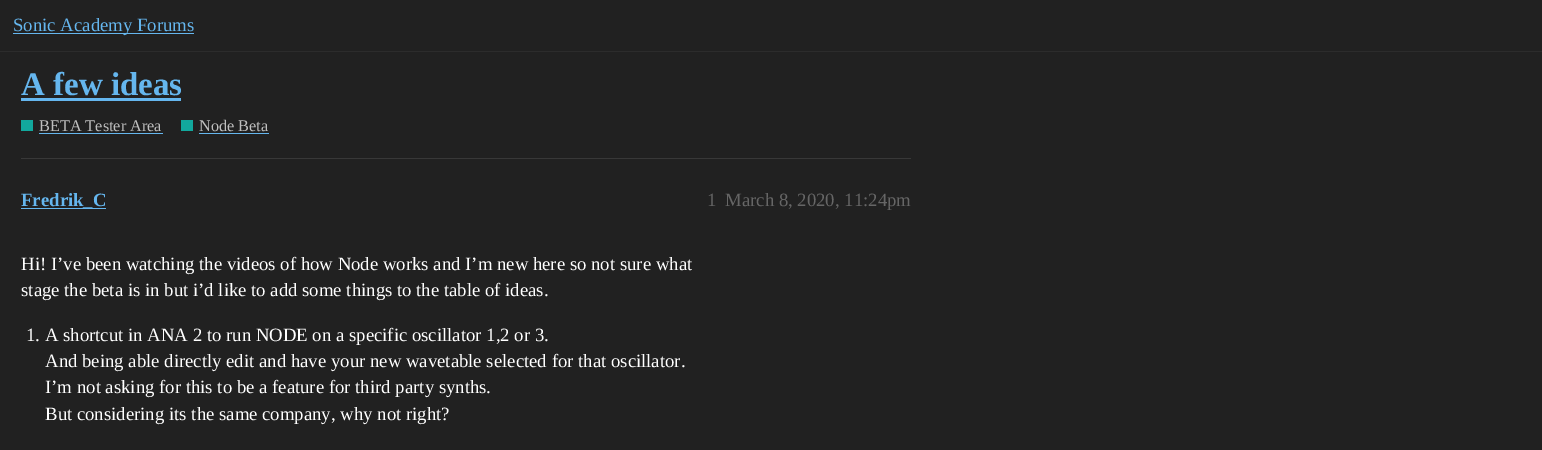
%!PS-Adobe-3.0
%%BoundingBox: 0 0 1542 450
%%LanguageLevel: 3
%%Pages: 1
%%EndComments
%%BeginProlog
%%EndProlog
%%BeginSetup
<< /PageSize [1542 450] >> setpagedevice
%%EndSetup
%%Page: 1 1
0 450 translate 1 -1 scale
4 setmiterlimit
0.129 setgray
0 0 1542 450 rectfill
0.173 setgray
0 51 1542 1 rectfill
0.396 0.714 0.933 setrgbcolor
13 33 181 1 rectfill
21 98 160 3 rectfill
0.071 0.659 0.616 setrgbcolor
21 120 12 11 rectfill
0.396 0.714 0.933 setrgbcolor
39 133 124 1 rectfill
0.071 0.659 0.616 setrgbcolor
181 120 12 11 rectfill
0.396 0.714 0.933 setrgbcolor
199 133 70 1 rectfill
0.22 setgray
21 158 890 1 rectfill
0.396 0.714 0.933 setrgbcolor
21 208 85 1 rectfill
/LiberationSerif-Regular [18.75 0 0 -18.75 0 0] selectfont
13 31 moveto (Sonic Academy Forums) show
/LiberationSerif-Bold [33 0 0 -33 0 0] selectfont
21 95 moveto (A few ideas) show
/LiberationSerif-Regular [16.25 0 0 -16.25 0 0] selectfont
0.749 setgray
39 131 moveto (BETA Tester Area) show
199 131 moveto (Node Beta) show
/LiberationSerif-Bold [18.75 0 0 -18.75 0 0] selectfont
0.396 0.714 0.933 setrgbcolor
21 206 moveto (Fredrik_C) show
/LiberationSerif-Regular [18.75 0 0 -18.75 0 0] selectfont
0.4 setgray
707 206 moveto (1) show
725 206 moveto (March 8, 2020, 11:24pm) show
1 setgray
21 270 moveto (Hi! I’ve been watching the videos of how Node works and I’m new here so not sure what) show
21 296 moveto (stage the beta is in but i’d like to add some things to the table of ideas.) show
26 341 moveto (1. A shortcut in ANA 2 to run NODE on a specific oscillator 1,2 or 3.) show
45 367 moveto (And being able directly edit and have your new wavetable selected for that oscillator.) show
45 393 moveto (I’m not asking for this to be a feature for third party synths.) show
45 420 moveto (But considering its the same company, why not right?) show
showpage
%%EOF
